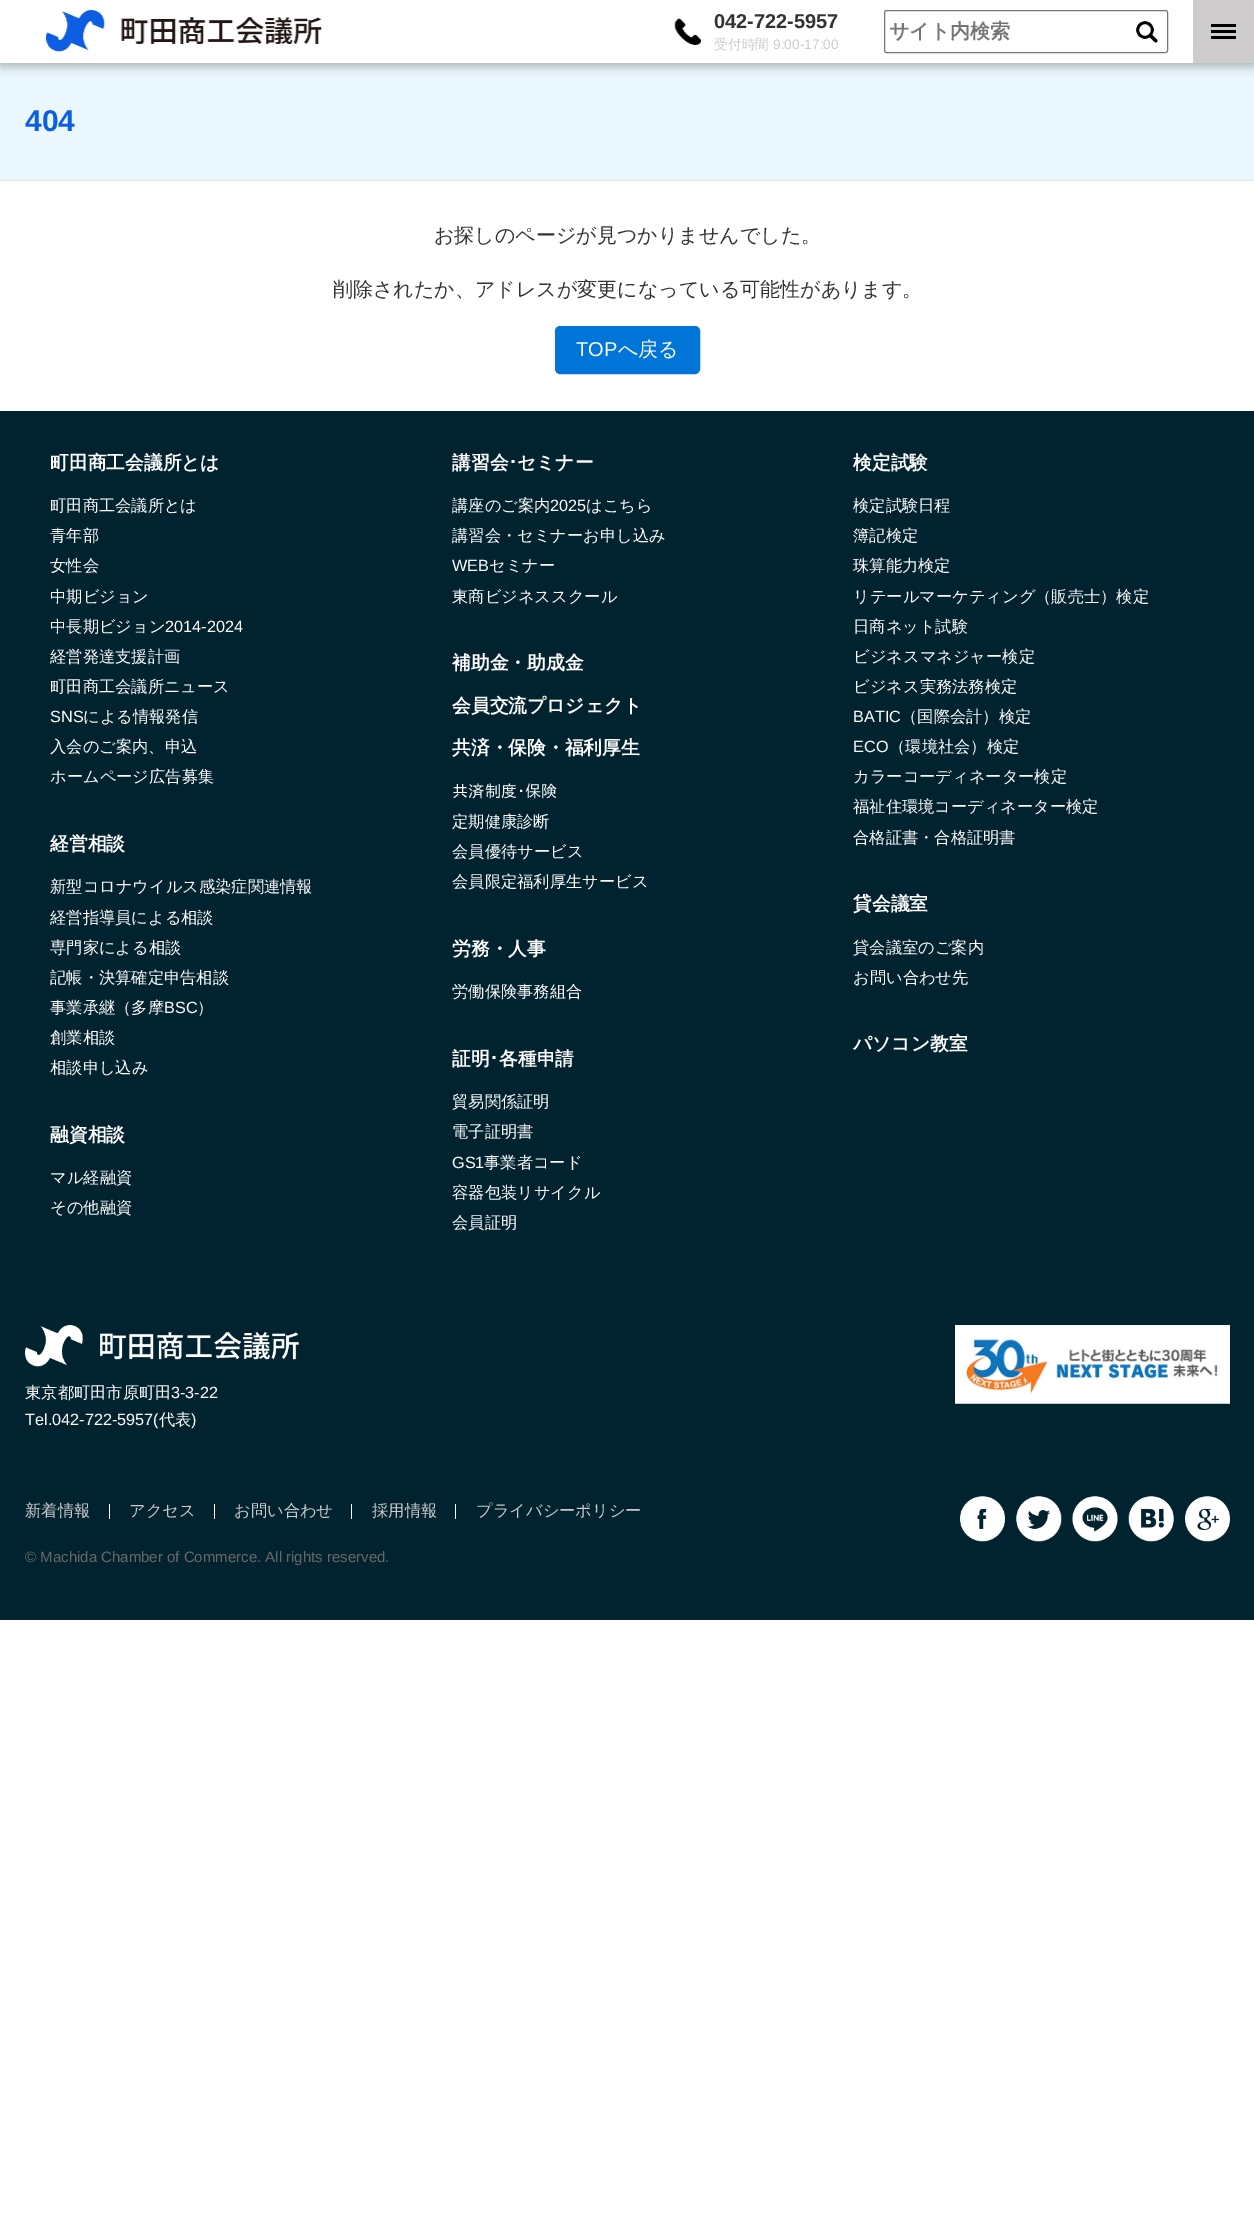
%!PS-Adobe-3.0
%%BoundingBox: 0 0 1254 2225
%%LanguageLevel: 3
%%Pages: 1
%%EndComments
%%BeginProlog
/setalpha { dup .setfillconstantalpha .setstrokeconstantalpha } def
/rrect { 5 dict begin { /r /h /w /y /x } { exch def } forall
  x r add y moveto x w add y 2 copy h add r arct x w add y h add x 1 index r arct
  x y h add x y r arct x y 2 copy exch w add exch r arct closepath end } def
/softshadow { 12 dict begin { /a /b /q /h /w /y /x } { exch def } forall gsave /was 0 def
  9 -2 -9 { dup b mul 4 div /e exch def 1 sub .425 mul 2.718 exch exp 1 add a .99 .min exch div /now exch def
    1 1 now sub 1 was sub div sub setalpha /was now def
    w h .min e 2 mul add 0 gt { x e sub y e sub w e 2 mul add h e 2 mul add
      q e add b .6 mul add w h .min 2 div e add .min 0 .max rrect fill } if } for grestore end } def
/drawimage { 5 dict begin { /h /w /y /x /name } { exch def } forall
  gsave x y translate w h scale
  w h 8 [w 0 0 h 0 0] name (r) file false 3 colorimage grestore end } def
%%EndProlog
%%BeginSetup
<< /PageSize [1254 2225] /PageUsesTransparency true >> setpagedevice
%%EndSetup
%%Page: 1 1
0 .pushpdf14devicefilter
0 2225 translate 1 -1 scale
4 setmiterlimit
1 setgray
0 0 1254 2225 rectfill
0.918 0.969 0.988 setrgbcolor
0 63 1254 117 rectfill
0 setgray
0 4 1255 62 0 5.5 0.3 softshadow
1 setgray
0 0 1193 63 rectfill
(images/1.raw) 46 10 276 42 drawimage
(images/2.raw) 674 18 27 27 drawimage
0.463 setgray
884.5 10.5 283 42 2 rrect stroke
(images/3.raw) 1136 21 22 22 drawimage
0.808 0.8 0.804 setrgbcolor
1193 0 61 63 rectfill
0 setgray
1211 24 25 3 rectfill
1211 30 25 3 rectfill
1211 36 25 3 rectfill
0.902 0.898 0.898 setrgbcolor
0 180 1254 1 rectfill
0.008 0.459 0.847 setrgbcolor
555.5 326.5 144 47 4.5 rrect gsave fill grestore
stroke
0.004 0.137 0.188 setrgbcolor
0 411 1254 1209 rectfill
(images/4.raw) 25 1325 274 42 drawimage
(images/5.raw) 955 1325 275 79 drawimage
1 setgray
109 1504 1 15 rectfill
214 1504 1 15 rectfill
351 1504 1 15 rectfill
455 1504 1 15 rectfill
(images/6.raw) 960 1496 45 46 drawimage
(images/7.raw) 1016 1496 46 46 drawimage
(images/8.raw) 1072 1496 46 46 drawimage
(images/9.raw) 1128 1496 46 46 drawimage
(images/10.raw) 1185 1496 45 46 drawimage
/LiberationSans-Bold [20 0 0 -20 0 0] selectfont
0.2 setgray
714 28 moveto (042-722-5957) show
/WenQuanYiZenHei-Medium [13.75 0 0 -13.75 0 0] selectfont
0.8 setgray
714 49 moveto (受付時間) show
/LiberationSans-Regular [13.75 0 0 -13.75 0 0] selectfont
773 49 moveto (9:00-17:00) show
/WenQuanYiZenHei-Bold [20 0 0 -20 0 0] selectfont
0.459 setgray
889 38 moveto (サイト内検索) show
/LiberationSans-Bold [30 0 0 -30 0 0] selectfont
0.051 0.369 0.89 setrgbcolor
25 131 moveto (404) show
/WenQuanYiZenHei-Medium [20 0 0 -20 0 0] selectfont
0.2 setgray
434 242 moveto (お探しのページが見つかりませんでした。) show
333 296 moveto (削除されたか、アドレスが変更になっている可能性があります。) show
/LiberationSans-Regular [20 0 0 -20 0 0] selectfont
1 setgray
576 356 moveto (TOP) show
/WenQuanYiZenHei-Medium [20 0 0 -20 0 0] selectfont
618 356 moveto (へ戻る) show
/WenQuanYiZenHei-Bold [18.75 0 0 -18.75 0 0] selectfont
50 469 moveto (町田商工会議所とは) show
/WenQuanYiZenHei-Medium [16.25 0 0 -16.25 0 0] selectfont
50 511 moveto (町田商工会議所とは) show
50 541 moveto (青年部) show
50 571 moveto (女性会) show
50 602 moveto (中期ビジョン) show
50 632 moveto (中長期ビジョン) show
/LiberationSans-Regular [16.25 0 0 -16.25 0 0] selectfont
165 632 moveto (2014-2024) show
/WenQuanYiZenHei-Medium [16.25 0 0 -16.25 0 0] selectfont
50 662 moveto (経営発達支援計画) show
50 692 moveto (町田商工会議所ニュース) show
/LiberationSans-Regular [16.25 0 0 -16.25 0 0] selectfont
50 722 moveto (SNS) show
/WenQuanYiZenHei-Medium [16.25 0 0 -16.25 0 0] selectfont
83 722 moveto (による情報発信) show
50 752 moveto (入会のご案内、申込) show
50 782 moveto (ホームページ広告募集) show
/WenQuanYiZenHei-Bold [18.75 0 0 -18.75 0 0] selectfont
50 850 moveto (経営相談) show
/WenQuanYiZenHei-Medium [16.25 0 0 -16.25 0 0] selectfont
50 892 moveto (新型コロナウイルス感染症関連情報) show
50 923 moveto (経営指導員による相談) show
50 953 moveto (専門家による相談) show
50 983 moveto (記帳・決算確定申告相談) show
50 1013 moveto (事業承継（多摩) show
/LiberationSans-Regular [16.25 0 0 -16.25 0 0] selectfont
164 1013 moveto (BSC) show
/WenQuanYiZenHei-Medium [16.25 0 0 -16.25 0 0] selectfont
197 1013 moveto (）) show
50 1043 moveto (創業相談) show
50 1073 moveto (相談申し込み) show
/WenQuanYiZenHei-Bold [18.75 0 0 -18.75 0 0] selectfont
50 1141 moveto (融資相談) show
/WenQuanYiZenHei-Medium [16.25 0 0 -16.25 0 0] selectfont
50 1183 moveto (マル経融資) show
50 1213 moveto (その他融資) show
/WenQuanYiZenHei-Bold [18.75 0 0 -18.75 0 0] selectfont
452 469 moveto (講習会) show
/IPAPGothic-Bold [18.75 0 0 -18.75 0 0] selectfont
508 469 moveto (･) show
/WenQuanYiZenHei-Bold [18.75 0 0 -18.75 0 0] selectfont
517 469 moveto (セミナー) show
/WenQuanYiZenHei-Medium [16.25 0 0 -16.25 0 0] selectfont
452 511 moveto (講座のご案内) show
/LiberationSans-Regular [16.25 0 0 -16.25 0 0] selectfont
550 511 moveto (2025) show
/WenQuanYiZenHei-Medium [16.25 0 0 -16.25 0 0] selectfont
586 511 moveto (はこちら) show
452 541 moveto (講習会・セミナーお申し込み) show
/LiberationSans-Regular [16.25 0 0 -16.25 0 0] selectfont
452 571 moveto (WEB) show
/WenQuanYiZenHei-Medium [16.25 0 0 -16.25 0 0] selectfont
489 571 moveto (セミナー) show
452 602 moveto (東商ビジネススクール) show
/WenQuanYiZenHei-Bold [18.75 0 0 -18.75 0 0] selectfont
452 669 moveto (補助金・助成金) show
452 712 moveto (会員交流プロジェクト) show
452 754 moveto (共済・保険・福利厚生) show
/IPAPGothic-Regular [16.25 0 0 -16.25 0 0] selectfont
452 797 moveto (共済制度･保険) show
/WenQuanYiZenHei-Medium [16.25 0 0 -16.25 0 0] selectfont
452 827 moveto (定期健康診断) show
452 857 moveto (会員優待サービス) show
452 887 moveto (会員限定福利厚生サービス) show
/WenQuanYiZenHei-Bold [18.75 0 0 -18.75 0 0] selectfont
452 955 moveto (労務・人事) show
/WenQuanYiZenHei-Medium [16.25 0 0 -16.25 0 0] selectfont
452 997 moveto (労働保険事務組合) show
/WenQuanYiZenHei-Bold [18.75 0 0 -18.75 0 0] selectfont
452 1065 moveto (証明) show
/IPAPGothic-Bold [18.75 0 0 -18.75 0 0] selectfont
489 1065 moveto (･) show
/WenQuanYiZenHei-Bold [18.75 0 0 -18.75 0 0] selectfont
499 1065 moveto (各種申請) show
/WenQuanYiZenHei-Medium [16.25 0 0 -16.25 0 0] selectfont
452 1107 moveto (貿易関係証明) show
452 1137 moveto (電子証明書) show
/LiberationSans-Regular [16.25 0 0 -16.25 0 0] selectfont
452 1168 moveto (GS1) show
/WenQuanYiZenHei-Medium [16.25 0 0 -16.25 0 0] selectfont
484 1168 moveto (事業者コード) show
452 1198 moveto (容器包装リサイクル) show
452 1228 moveto (会員証明) show
/WenQuanYiZenHei-Bold [18.75 0 0 -18.75 0 0] selectfont
853 469 moveto (検定試験) show
/WenQuanYiZenHei-Medium [16.25 0 0 -16.25 0 0] selectfont
853 511 moveto (検定試験日程) show
853 541 moveto (簿記検定) show
853 571 moveto (珠算能力検定) show
853 602 moveto (リテールマーケティング（販売士）検定) show
853 632 moveto (日商ネット試験) show
853 662 moveto (ビジネスマネジャー検定) show
853 692 moveto (ビジネス実務法務検定) show
/LiberationSans-Regular [16.25 0 0 -16.25 0 0] selectfont
853 722 moveto (BATIC) show
/WenQuanYiZenHei-Medium [16.25 0 0 -16.25 0 0] selectfont
901 722 moveto (（国際会計）検定) show
/LiberationSans-Regular [16.25 0 0 -16.25 0 0] selectfont
853 752 moveto (ECO) show
/WenQuanYiZenHei-Medium [16.25 0 0 -16.25 0 0] selectfont
889 752 moveto (（環境社会）検定) show
853 782 moveto (カラーコーディネーター検定) show
853 812 moveto (福祉住環境コーディネーター検定) show
853 843 moveto (合格証書・合格証明書) show
/WenQuanYiZenHei-Bold [18.75 0 0 -18.75 0 0] selectfont
853 910 moveto (貸会議室) show
/WenQuanYiZenHei-Medium [16.25 0 0 -16.25 0 0] selectfont
853 953 moveto (貸会議室のご案内) show
853 983 moveto (お問い合わせ先) show
/WenQuanYiZenHei-Bold [18.75 0 0 -18.75 0 0] selectfont
853 1050 moveto (パソコン教室) show
/WenQuanYiZenHei-Medium [16.25 0 0 -16.25 0 0] selectfont
25 1398 moveto (東京都町田市原町田) show
/LiberationSans-Regular [16.25 0 0 -16.25 0 0] selectfont
171 1398 moveto (3-3-22) show
25 1425 moveto (Tel.042-722-5957\() show
/WenQuanYiZenHei-Medium [16.25 0 0 -16.25 0 0] selectfont
159 1425 moveto (代表) show
/LiberationSans-Regular [16.25 0 0 -16.25 0 0] selectfont
191 1425 moveto (\)) show
/WenQuanYiZenHei-Medium [16.25 0 0 -16.25 0 0] selectfont
0.8 setgray
25 1516 moveto (新着情報) show
129 1516 moveto (アクセス) show
234 1516 moveto (お問い合わせ) show
372 1516 moveto (採用情報) show
476 1516 moveto (プライバシーポリシー) show
/LiberationSans-Regular [15 0 0 -15 0 0] selectfont
0.408 setgray
25 1562 moveto (© Machida Chamber of Commerce. All rights reserved.) show
.poppdf14devicefilter showpage
%%EOF
